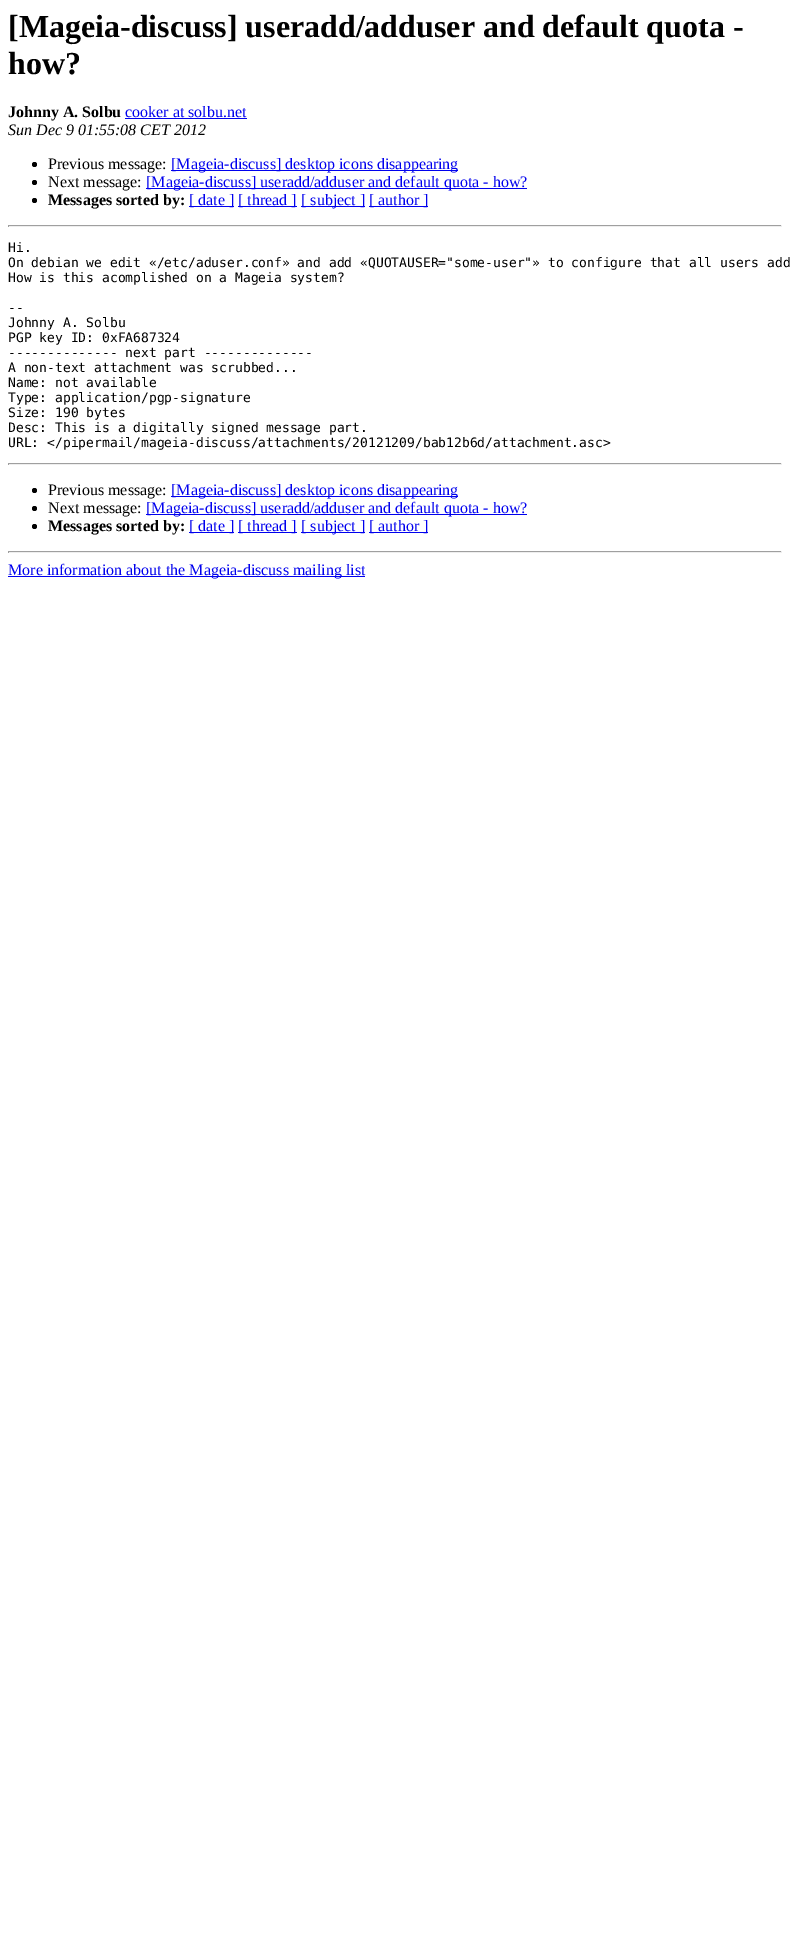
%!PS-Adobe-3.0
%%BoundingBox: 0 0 790 1947
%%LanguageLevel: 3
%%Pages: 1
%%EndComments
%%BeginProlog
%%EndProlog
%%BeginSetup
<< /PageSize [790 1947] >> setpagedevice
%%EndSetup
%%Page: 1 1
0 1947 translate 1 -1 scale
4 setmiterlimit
1 setgray
0 0 790 1947 rectfill
0 0 0.933 setrgbcolor
125 118 122 1 rectfill
0 setgray
newpath 34.5 164.5 2.5 0 360 arc closepath fill
0 0 0.933 setrgbcolor
171 170 287 1 rectfill
0 setgray
newpath 34.5 182.5 2.5 0 360 arc closepath fill
0 0 0.933 setrgbcolor
146 188 381 1 rectfill
0 setgray
newpath 34.5 200.5 2.5 0 360 arc closepath fill
0 0 0.933 setrgbcolor
189 206 45 1 rectfill
238 206 59 1 rectfill
301 206 64 1 rectfill
369 206 59 1 rectfill
0.624 setgray
8 225 774 1 rectfill
0.933 setgray
781 225 1 2 rectfill
8 226 774 1 rectfill
0.624 setgray
8 225 1 2 rectfill
8 463 774 1 rectfill
0.933 setgray
781 463 1 2 rectfill
8 464 774 1 rectfill
0.624 setgray
8 463 1 2 rectfill
0 setgray
newpath 34.5 490.5 2.5 0 360 arc closepath fill
0 0 0.933 setrgbcolor
171 496 287 1 rectfill
0 setgray
newpath 34.5 508.5 2.5 0 360 arc closepath fill
0 0 0.933 setrgbcolor
146 514 381 1 rectfill
0 setgray
newpath 34.5 526.5 2.5 0 360 arc closepath fill
0 0 0.933 setrgbcolor
189 532 45 1 rectfill
238 532 59 1 rectfill
301 532 64 1 rectfill
369 532 59 1 rectfill
0.624 setgray
8 551 774 1 rectfill
0.933 setgray
781 551 1 2 rectfill
8 552 774 1 rectfill
0.624 setgray
8 551 1 2 rectfill
0 0 0.933 setrgbcolor
8 576 357 1 rectfill
/LiberationSerif-Bold [32 0 0 -32 0 0] selectfont
0 setgray
8 37 moveto ([Mageia-discuss] useradd/adduser and default quota -) show
8 74 moveto (how?) show
/LiberationSerif-Bold [16 0 0 -16 0 0] selectfont
8 117 moveto (Johnny A. Solbu) show
/LiberationSerif-Regular [16 0 0 -16 0 0] selectfont
0 0 0.933 setrgbcolor
125 117 moveto (cooker at solbu.net) show
/LiberationSerif-Italic [16 0 0 -16 0 0] selectfont
0 setgray
8 135 moveto (Sun Dec 9 01:55:08 CET 2012) show
/LiberationSerif-Regular [16 0 0 -16 0 0] selectfont
48 169 moveto (Previous message:) show
0 0 0.933 setrgbcolor
171 169 moveto ([Mageia-discuss] desktop icons disappearing) show
0 setgray
48 187 moveto (Next message:) show
0 0 0.933 setrgbcolor
146 187 moveto ([Mageia-discuss] useradd/adduser and default quota - how?) show
/LiberationSerif-Bold [16 0 0 -16 0 0] selectfont
0 setgray
48 205 moveto (Messages sorted by:) show
/LiberationSerif-Regular [16 0 0 -16 0 0] selectfont
0 0 0.933 setrgbcolor
189 205 moveto ([ date ]) show
238 205 moveto ([ thread ]) show
301 205 moveto ([ subject ]) show
369 205 moveto ([ author ]) show
/DejaVuSansMono-Regular [13 0 0 -13 0 0] selectfont
0 setgray
8 252 moveto (Hi.) show
8 267 moveto (On debian we edit «/etc/aduser.conf» and add «QUOTAUSER="some-user"» to configure that all users add) show
8 282 moveto (How is this acomplished on a Mageia system?) show
8 312 moveto (--) show
8 327 moveto (Johnny A. Solbu) show
8 342 moveto (PGP key ID: 0xFA687324) show
8 357 moveto (-------------- next part --------------) show
8 372 moveto (A non-text attachment was scrubbed...) show
8 387 moveto (Name: not available) show
8 402 moveto (Type: application/pgp-signature) show
8 417 moveto (Size: 190 bytes) show
8 432 moveto (Desc: This is a digitally signed message part.) show
8 447 moveto (URL: </pipermail/mageia-discuss/attachments/20121209/bab12b6d/attachment.asc>) show
/LiberationSerif-Regular [16 0 0 -16 0 0] selectfont
48 495 moveto (Previous message:) show
0 0 0.933 setrgbcolor
171 495 moveto ([Mageia-discuss] desktop icons disappearing) show
0 setgray
48 513 moveto (Next message:) show
0 0 0.933 setrgbcolor
146 513 moveto ([Mageia-discuss] useradd/adduser and default quota - how?) show
/LiberationSerif-Bold [16 0 0 -16 0 0] selectfont
0 setgray
48 531 moveto (Messages sorted by:) show
/LiberationSerif-Regular [16 0 0 -16 0 0] selectfont
0 0 0.933 setrgbcolor
189 531 moveto ([ date ]) show
238 531 moveto ([ thread ]) show
301 531 moveto ([ subject ]) show
369 531 moveto ([ author ]) show
8 575 moveto (More information about the Mageia-discuss mailing list) show
showpage
%%EOF
